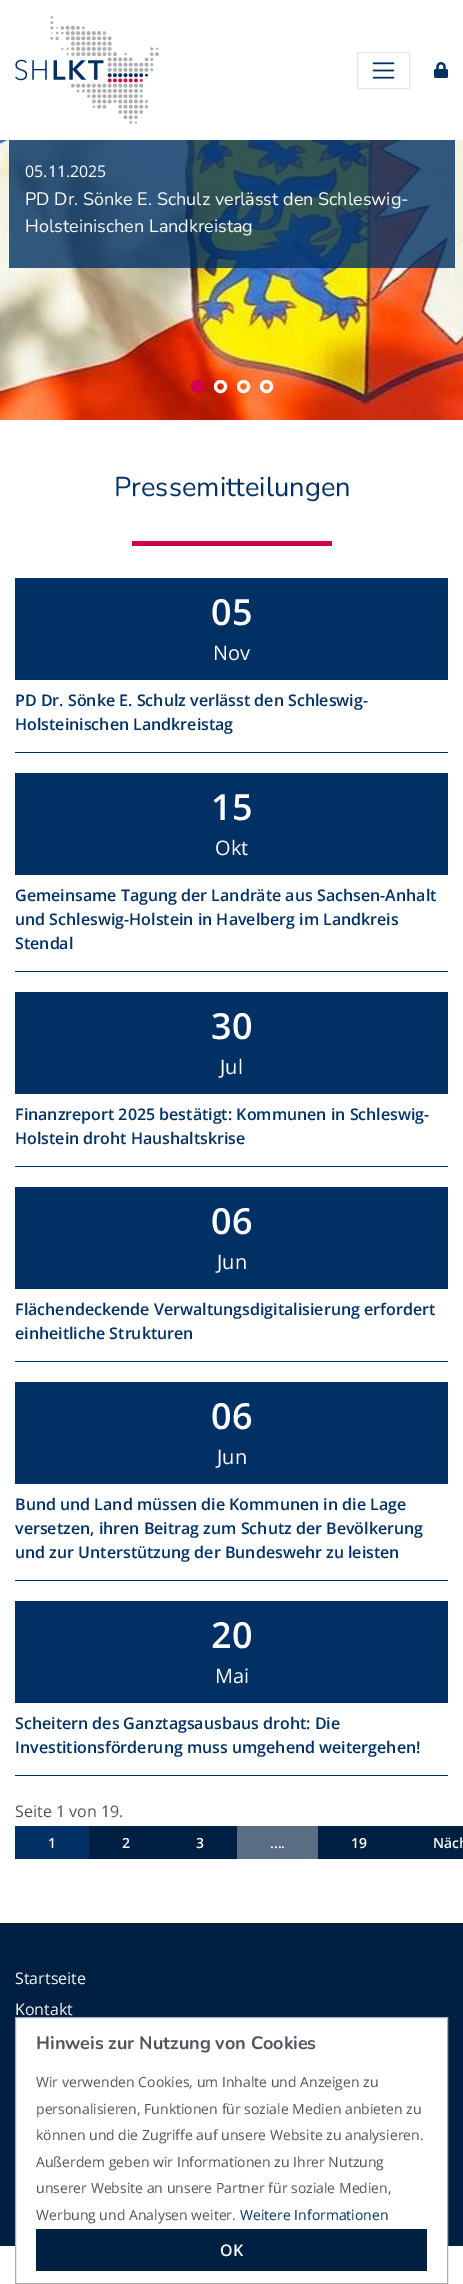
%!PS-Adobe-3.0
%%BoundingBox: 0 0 463 2284
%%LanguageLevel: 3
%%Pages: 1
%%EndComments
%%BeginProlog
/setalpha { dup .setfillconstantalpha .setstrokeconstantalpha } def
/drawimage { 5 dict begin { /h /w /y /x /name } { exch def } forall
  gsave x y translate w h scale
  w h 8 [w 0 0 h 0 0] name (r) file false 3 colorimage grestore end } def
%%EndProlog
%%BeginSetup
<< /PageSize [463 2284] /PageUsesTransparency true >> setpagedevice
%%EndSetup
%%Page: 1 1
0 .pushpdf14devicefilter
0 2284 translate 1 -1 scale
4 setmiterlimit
1 setgray
0 0 463 2284 rectfill
(images/1.raw) 15 16 144 108 drawimage
0.902 setgray
357.5 52.5 52 36 rectstroke
(images/2.raw) 372 62 23 17 drawimage
(images/3.raw) 434 62 14 16 drawimage
(images/4.raw) 0 140 463 280 drawimage
0.8 setalpha
0 0.188 0.392 setrgbcolor
9 140 446 128 rectfill
1 setalpha
0.831 0 0.294 setrgbcolor
newpath 197.5 386.5 5 0 360 arc closepath gsave fill grestore
3 setlinewidth
stroke
1 setgray
newpath 220.5 386.5 5 0 360 arc closepath stroke
newpath 243.5 386.5 5 0 360 arc closepath stroke
newpath 266.5 386.5 5 0 360 arc closepath stroke
0.831 0 0.294 setrgbcolor
132 541 200 5 rectfill
0 0.188 0.392 setrgbcolor
15 752 433 1 rectfill
15 578 433 102 rectfill
15 971 433 1 rectfill
15 773 433 102 rectfill
15 1166 433 1 rectfill
15 992 433 102 rectfill
15 1361 433 1 rectfill
15 1187 433 102 rectfill
15 1580 433 1 rectfill
15 1382 433 102 rectfill
15 1775 433 1 rectfill
15 1601 433 102 rectfill
15 1826 74 33 rectfill
0 0.125 0.263 setrgbcolor
89 1826 148 33 rectfill
0.349 0.431 0.522 setrgbcolor
237 1826 81 33 rectfill
0 0.125 0.263 setrgbcolor
318 1826 145 33 rectfill
0 1923 463 323 rectfill
1 setgray
16 2018 431 228 rectfill
0.667 0.69 0.702 setrgbcolor
1 setlinewidth
15.5 2017.5 432 266 rectstroke
0 0.125 0.263 setrgbcolor
36 2229 391 42 rectfill
/OpenSans-Regular [16 0 0 -16 0 0] selectfont
1 setgray
25 177 moveto (05.11.2025) show
/Nunito-ExtraLight [18 0 0 -18 0 0] selectfont
25 205 moveto (PD Dr. Sönke E. Schulz verlässt den Schleswig-) show
25 232 moveto (Holsteinischen Landkreistag) show
/Nunito-ExtraLight [27.25 0 0 -27.25 0 0] selectfont
0 0.188 0.392 setrgbcolor
114 496 moveto (Pressemitteilungen) show
/OpenSans-SemiBold [36 0 0 -36 0 0] selectfont
1 setgray
211 625 moveto (05) show
/OpenSans-Regular [20 0 0 -20 0 0] selectfont
213 660 moveto (Nov) show
/OpenSans-SemiBold [16 0 0 -16 0 0] selectfont
0 0.188 0.392 setrgbcolor
15 706 moveto (PD Dr. Sönke E. Schulz verlässt den Schleswig-) show
15 730 moveto (Holsteinischen Landkreistag) show
/OpenSans-SemiBold [36 0 0 -36 0 0] selectfont
1 setgray
211 820 moveto (15) show
/OpenSans-Regular [20 0 0 -20 0 0] selectfont
215 855 moveto (Okt) show
/OpenSans-SemiBold [16 0 0 -16 0 0] selectfont
0 0.188 0.392 setrgbcolor
15 901 moveto (Gemeinsame Tagung der Landräte aus Sachsen-Anhalt) show
15 925 moveto (und Schleswig-Holstein in Havelberg im Landkreis) show
15 949 moveto (Stendal) show
/OpenSans-SemiBold [36 0 0 -36 0 0] selectfont
1 setgray
211 1039 moveto (30) show
/OpenSans-Regular [20 0 0 -20 0 0] selectfont
220 1074 moveto (Jul) show
/OpenSans-SemiBold [16 0 0 -16 0 0] selectfont
0 0.188 0.392 setrgbcolor
15 1120 moveto (Finanzreport 2025 bestätigt: Kommunen in Schleswig-) show
15 1144 moveto (Holstein droht Haushaltskrise) show
/OpenSans-SemiBold [36 0 0 -36 0 0] selectfont
1 setgray
211 1234 moveto (06) show
/OpenSans-Regular [20 0 0 -20 0 0] selectfont
217 1269 moveto (Jun) show
/OpenSans-SemiBold [16 0 0 -16 0 0] selectfont
0 0.188 0.392 setrgbcolor
15 1315 moveto (Flächendeckende Verwaltungsdigitalisierung erfordert) show
15 1339 moveto (einheitliche Strukturen) show
/OpenSans-SemiBold [36 0 0 -36 0 0] selectfont
1 setgray
211 1429 moveto (06) show
/OpenSans-Regular [20 0 0 -20 0 0] selectfont
217 1464 moveto (Jun) show
/OpenSans-SemiBold [16 0 0 -16 0 0] selectfont
0 0.188 0.392 setrgbcolor
15 1510 moveto (Bund und Land müssen die Kommunen in die Lage) show
15 1534 moveto (versetzen, ihren Beitrag zum Schutz der Bevölkerung) show
15 1558 moveto (und zur Unterstützung der Bundeswehr zu leisten) show
/OpenSans-SemiBold [36 0 0 -36 0 0] selectfont
1 setgray
211 1648 moveto (20) show
/OpenSans-Regular [20 0 0 -20 0 0] selectfont
215 1683 moveto (Mai) show
/OpenSans-SemiBold [16 0 0 -16 0 0] selectfont
0 0.188 0.392 setrgbcolor
15 1729 moveto (Scheitern des Ganztagsausbaus droht: Die) show
15 1753 moveto (Investitionsförderung muss umgehend weitergehen!) show
/OpenSans-Regular [16 0 0 -16 0 0] selectfont
0.31 0.329 0.361 setrgbcolor
15 1817 moveto (Seite 1 von 19.) show
/OpenSans-SemiBold [14 0 0 -14 0 0] selectfont
1 setgray
48 1848 moveto (1) show
122 1848 moveto (2) show
196 1848 moveto (3) show
270 1848 moveto (....) show
351 1848 moveto (19) show
433 1848 moveto (Näch) show
/OpenSans-Regular [16 0 0 -16 0 0] selectfont
0.969 0.98 0.984 setrgbcolor
15 1984 moveto (Startseite) show
15 2015 moveto (Kontakt) show
/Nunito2-ExtraLight [18 0 0 -18 0 0] selectfont
0.31 0.329 0.361 setrgbcolor
36 2049 moveto (Hinweis zur Nutzung von Cookies) show
/OpenSans-Regular [14 0 0 -14 0 0] selectfont
36 2087 moveto (Wir verwenden Cookies, um Inhalte und Anzeigen zu) show
36 2114 moveto (personalisieren, Funktionen für soziale Medien anbieten zu) show
36 2140 moveto (können und die Zugriffe auf unsere Website zu analysieren.) show
36 2167 moveto (Außerdem geben wir Informationen zu Ihrer Nutzung) show
36 2193 moveto (unserer Website an unsere Partner für soziale Medien,) show
36 2220 moveto (Werbung und Analysen weiter.) show
0 0.188 0.392 setrgbcolor
240 2220 moveto (Weitere Informationen) show
/OpenSans-SemiBold [16 0 0 -16 0 0] selectfont
1 setgray
220 2256 moveto (OK) show
.poppdf14devicefilter showpage
%%EOF
